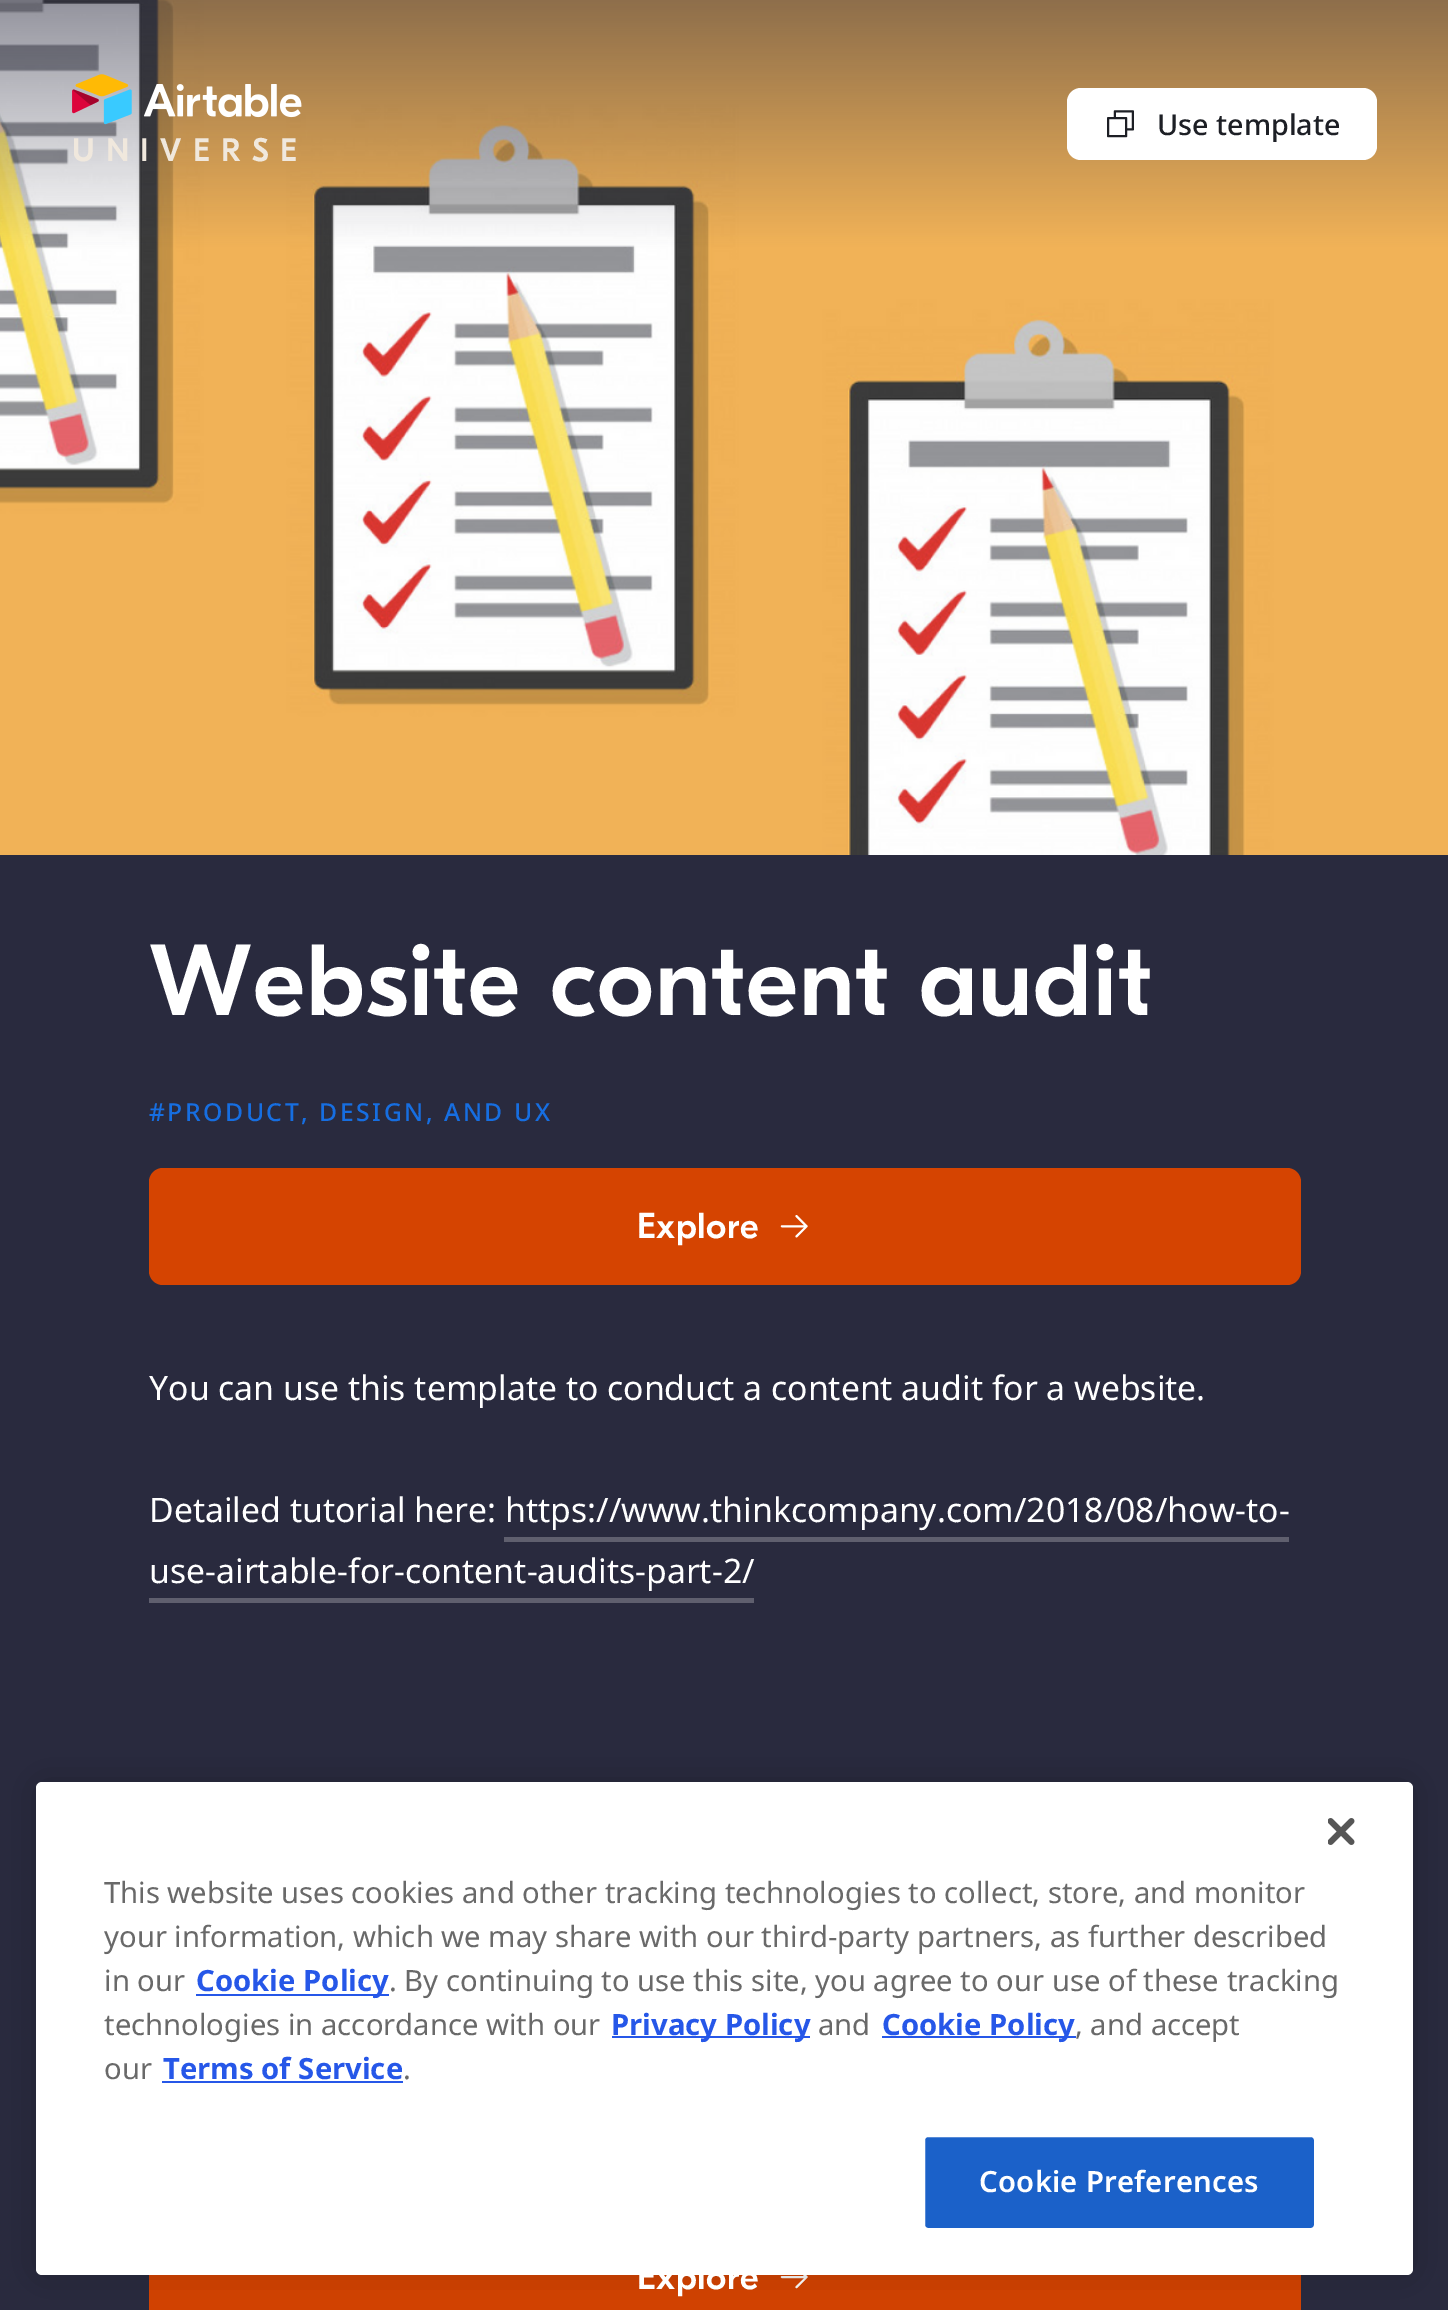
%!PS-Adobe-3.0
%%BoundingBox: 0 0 1448 2310
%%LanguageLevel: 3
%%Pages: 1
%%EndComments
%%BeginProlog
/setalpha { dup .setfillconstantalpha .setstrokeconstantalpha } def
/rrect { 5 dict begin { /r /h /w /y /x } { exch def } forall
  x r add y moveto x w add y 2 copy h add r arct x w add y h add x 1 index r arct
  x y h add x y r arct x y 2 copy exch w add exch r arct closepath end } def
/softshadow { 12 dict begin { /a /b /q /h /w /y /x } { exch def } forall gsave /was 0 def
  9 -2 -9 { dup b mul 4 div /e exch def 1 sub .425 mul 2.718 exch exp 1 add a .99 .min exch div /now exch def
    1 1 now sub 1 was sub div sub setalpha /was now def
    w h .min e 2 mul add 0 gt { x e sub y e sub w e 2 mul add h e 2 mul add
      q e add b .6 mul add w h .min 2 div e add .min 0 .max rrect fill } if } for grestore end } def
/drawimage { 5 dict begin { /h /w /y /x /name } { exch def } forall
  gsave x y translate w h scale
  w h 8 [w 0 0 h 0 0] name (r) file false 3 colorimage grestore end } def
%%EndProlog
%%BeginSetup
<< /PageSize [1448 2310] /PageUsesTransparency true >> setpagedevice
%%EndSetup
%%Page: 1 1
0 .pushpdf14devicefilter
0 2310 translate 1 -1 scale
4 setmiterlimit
0.161 0.165 0.243 setrgbcolor
0 0 1448 2310 rectfill
(images/1.raw) 0 0 1448 855 drawimage
1 setgray
1067 88 310 72 14 rrect fill
(images/2.raw) 1107 110 27 28 drawimage
(images/3.raw) 72 74 230 51 drawimage
0.835 0.267 0.004 setrgbcolor
149 1168 1152 117 14 rrect fill
(images/4.raw) 780 1215 28 23 drawimage
0.373 0.373 0.431 setrgbcolor
504 1537 785 5 rectfill
149 1598 605 5 rectfill
0.835 0.267 0.004 setrgbcolor
149 2275 1152 35 rectfill
(images/5.raw) 780 2275 28 14 drawimage
0 setgray
36 1782 1377 493 6 20 0.2 softshadow
1 setgray
36 1782 1377 493 6 rrect fill
(images/6.raw) 1328 1818 27 27 drawimage
0.149 0.341 0.91 setrgbcolor
196 1994 193 2 rectfill
612 2036 198 2 rectfill
882 2036 194 2 rectfill
162 2081 241 2 rectfill
0.106 0.38 0.788 setrgbcolor
924 2136 391 93 4 rrect gsave fill grestore
1 setgray
2 setlinewidth
stroke
/NotoSans-Medium [28.75 0 0 -28.75 0 0] selectfont
0.114 0.122 0.145 setrgbcolor
1157 135 moveto (Use template) show
/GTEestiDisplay-Medium [32.5 0 0 -32.5 0 0] selectfont
0.941 0.91 0.867 setrgbcolor
72 161 moveto 11.25 0 (UNIVERSE) ashow
/GTEestiDisplay-Medium [100.75 0 0 -100.75 0 0] selectfont
1 setgray
149 1015 moveto 1 0 (Website content audit) ashow
/NotoSans-Medium [24.75 0 0 -24.75 0 0] selectfont
0.086 0.431 0.882 setrgbcolor
149 1121 moveto 2.5 0 (#PRODUCT, DESIGN, AND UX) ashow
/GTEestiDisplay-Medium [36 0 0 -36 0 0] selectfont
1 setgray
637 1238 moveto 0.5 0 (Explore) ashow
/NotoSans-Regular [33.75 0 0 -33.75 0 0] selectfont
149 1400 moveto (You can use this template to conduct a content audit for a website.) show
149 1522 moveto (Detailed tutorial here: https://www.thinkcompany.com/2018/08/how-to-) show
149 1583 moveto (use-airtable-for-content-audits-part-2/) show
/GTEestiDisplay-Medium [36 0 0 -36 0 0] selectfont
637 2289 moveto 0.5 0 (Explore) ashow
/NotoSans-Regular [29.25 0 0 -29.25 0 0] selectfont
0.412 setgray
104 1903 moveto (This website uses cookies and other tracking technologies to collect, store, and monitor) show
104 1947 moveto (your information, which we may share with our third-party partners, as further described) show
104 1991 moveto (in our) show
/NotoSans-Bold [29.25 0 0 -29.25 0 0] selectfont
0.149 0.341 0.91 setrgbcolor
196 1991 moveto (Cookie Policy) show
/NotoSans-Regular [29.25 0 0 -29.25 0 0] selectfont
0.412 setgray
389 1991 moveto (. By continuing to use this site, you agree to our use of these tracking) show
104 2035 moveto (technologies in accordance with our) show
/NotoSans-Bold [29.25 0 0 -29.25 0 0] selectfont
0.149 0.341 0.91 setrgbcolor
611 2035 moveto (Privacy Policy) show
/NotoSans-Regular [29.25 0 0 -29.25 0 0] selectfont
0.412 setgray
818 2035 moveto (and) show
/NotoSans-Bold [29.25 0 0 -29.25 0 0] selectfont
0.149 0.341 0.91 setrgbcolor
882 2035 moveto (Cookie Policy) show
/NotoSans-Regular [29.25 0 0 -29.25 0 0] selectfont
0.412 setgray
1075 2035 moveto (, and accept) show
104 2079 moveto (our) show
/NotoSans-Bold [29.25 0 0 -29.25 0 0] selectfont
0.149 0.341 0.91 setrgbcolor
163 2079 moveto (Terms of Service) show
/NotoSans-Regular [29.25 0 0 -29.25 0 0] selectfont
0.412 setgray
403 2079 moveto (.) show
/NotoSans-SemiBold [29.25 0 0 -29.25 0 0] selectfont
1 setgray
979 2192 moveto 0.25 0 (Cookie Preferences) ashow
.poppdf14devicefilter showpage
%%EOF
